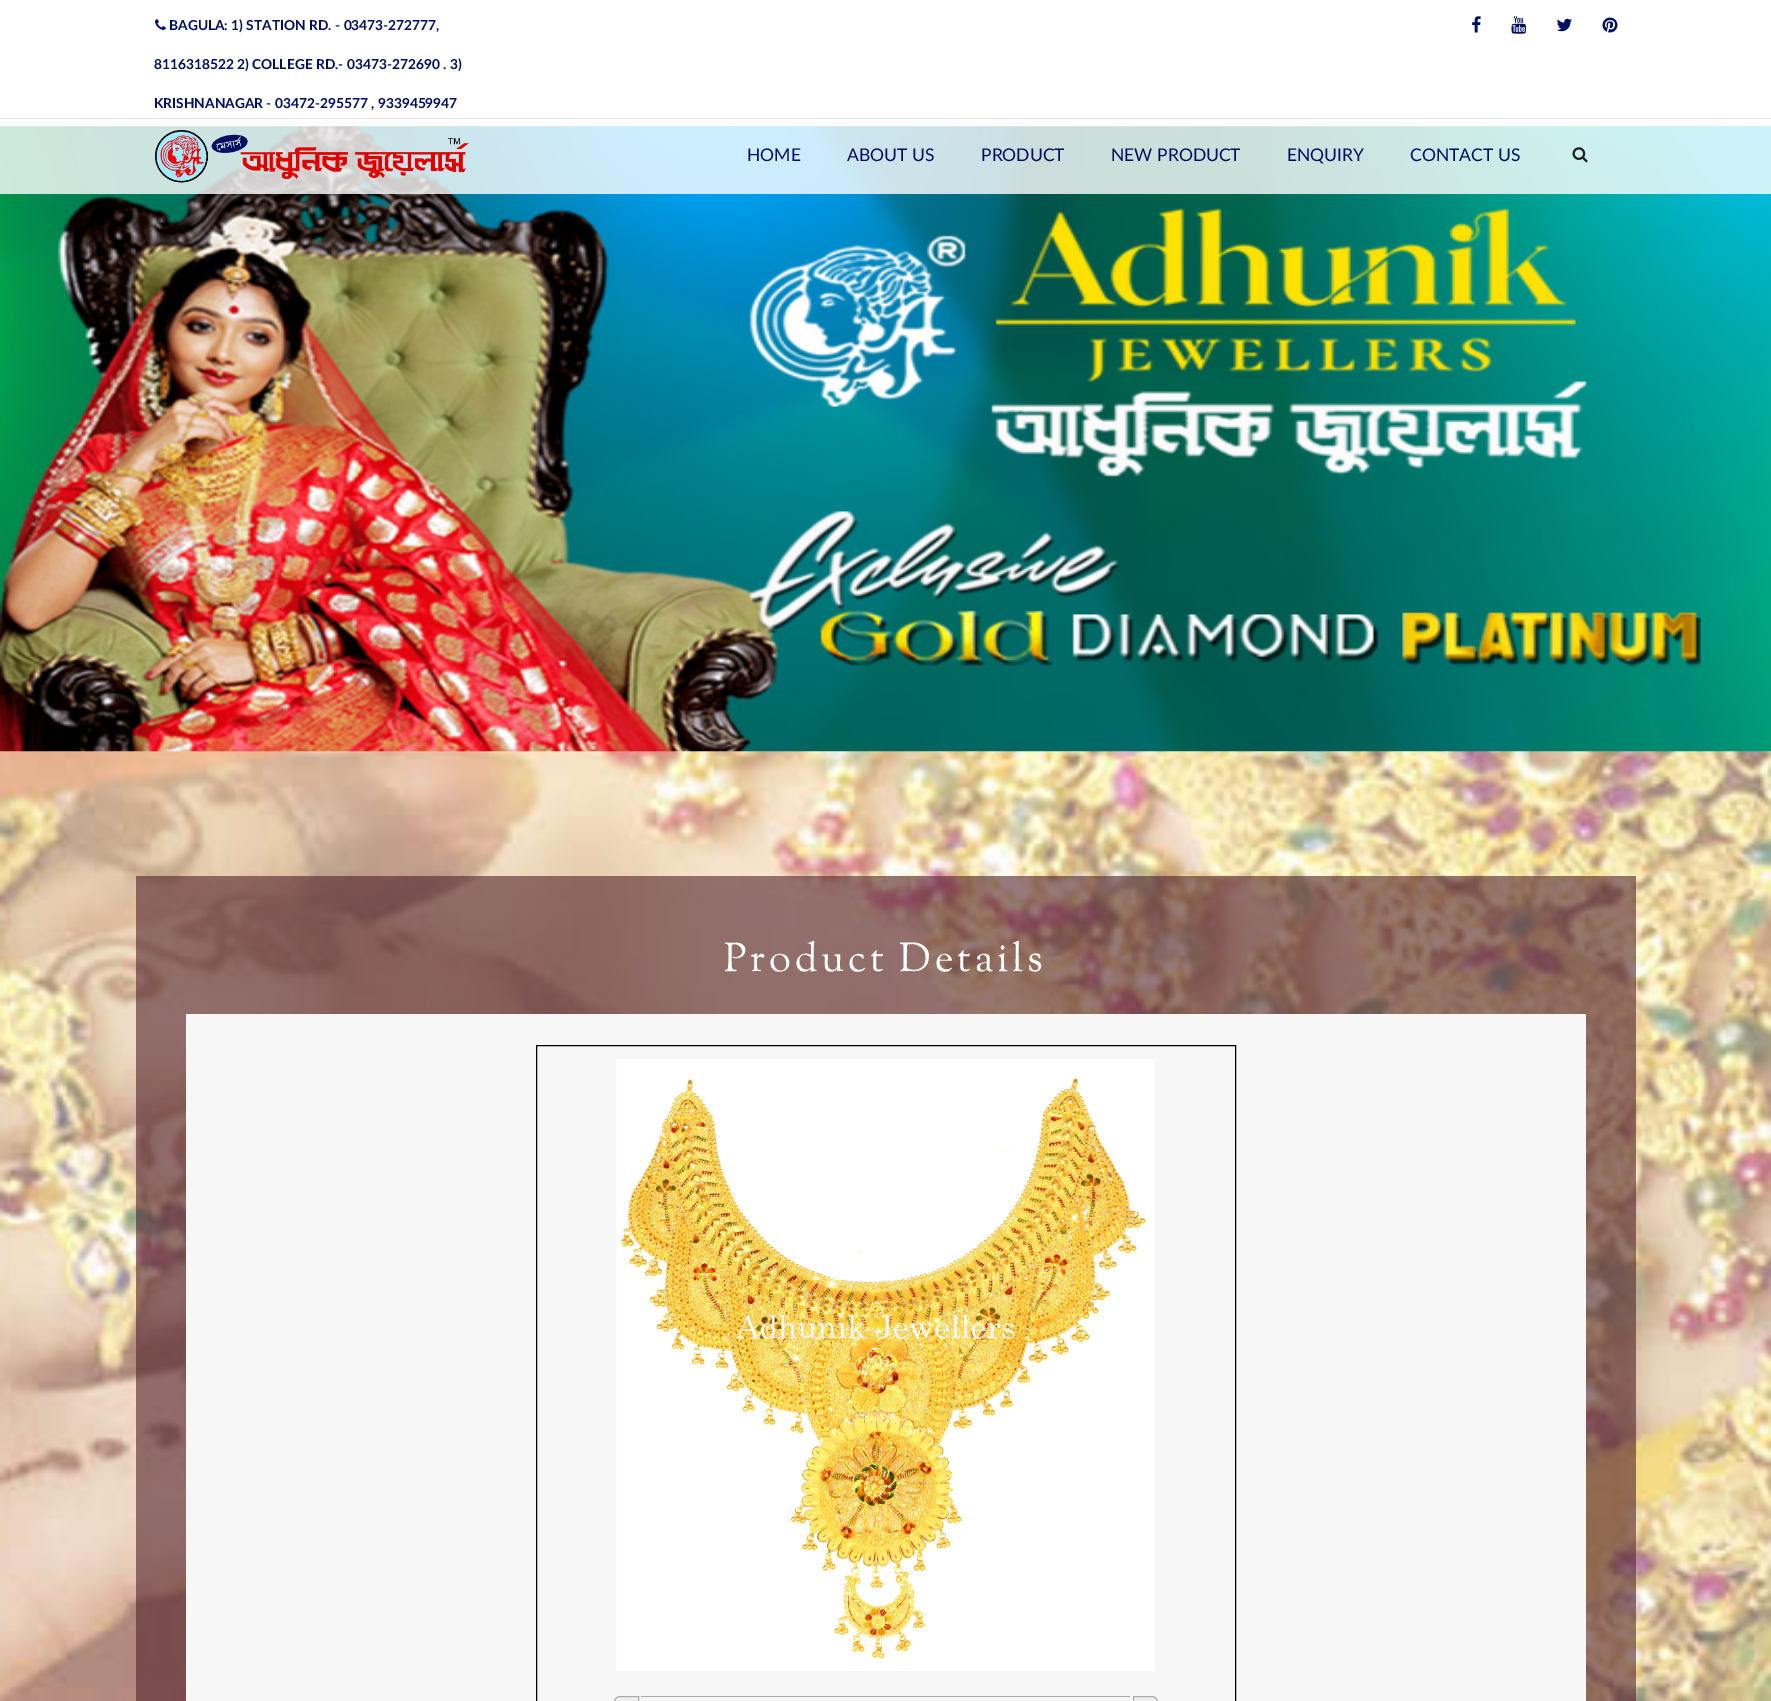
%!PS-Adobe-3.0
%%BoundingBox: 0 0 1771 1701
%%LanguageLevel: 3
%%Pages: 1
%%EndComments
%%BeginProlog
/setalpha { dup .setfillconstantalpha .setstrokeconstantalpha } def
/drawimage { 5 dict begin { /h /w /y /x /name } { exch def } forall
  gsave x y translate w h scale
  w h 8 [w 0 0 h 0 0] name (r) file false 3 colorimage grestore end } def
%%EndProlog
%%BeginSetup
<< /PageSize [1771 1701] /PageUsesTransparency true >> setpagedevice
%%EndSetup
%%Page: 1 1
0 .pushpdf14devicefilter
0 1701 translate 1 -1 scale
4 setmiterlimit
1 setgray
0 0 1771 1701 rectfill
(images/8.raw) 0 126 1771 1575 drawimage
(images/9.raw) 0 126 1771 626 drawimage
0.8 setalpha
0 126 1771 68 rectfill
1 setalpha
(images/1.raw) 155 19 11 11 drawimage
(images/2.raw) 1472 16 9 17 drawimage
(images/3.raw) 1511 16 15 18 drawimage
(images/4.raw) 1557 18 15 14 drawimage
(images/5.raw) 1602 17 16 16 drawimage
0.902 setgray
0 118 1771 1 rectfill
(images/6.raw) 155 130 314 53 drawimage
(images/7.raw) 1572 147 16 16 drawimage
0.6 setalpha
0.318 0.133 0.173 setrgbcolor
136 876 1500 825 rectfill
1 setalpha
0.969 setgray
186 1014 1400 687 rectfill
0 setgray
536.5 1045.5 699 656 rectstroke
(images/10.raw) 616 1059 539 612 drawimage
0.667 setgray
641 1696 489 1 rectfill
0.937 setgray
newpath 620 1696.5 moveto 638.5 1696.5 lineto 638.5 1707.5 lineto 620 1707.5 lineto 617 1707.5 614.5 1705 614.5 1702 curveto 614.5 1699 617 1696.5 620 1696.5 curveto closepath gsave fill grestore
0.667 setgray
stroke
0.937 setgray
newpath 1133.5 1696.5 moveto 1152 1696.5 lineto 1155 1696.5 1157.5 1699 1157.5 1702 curveto 1157.5 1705 1155 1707.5 1152 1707.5 curveto 1133.5 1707.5 lineto closepath gsave fill grestore
0.667 setgray
stroke
/Lato-Bold [13.75 0 0 -13.75 0 0] selectfont
0 0.059 0.38 setrgbcolor
169 30 moveto (BAGULA: 1\) STATION RD. - 03473-272777,) show
154 69 moveto (8116318522 2\) COLLEGE RD.- 03473-272690 . 3\)) show
154 108 moveto (KRISHNANAGAR - 03472-295577 , 9339459947) show
/Lato-Regular [17.5 0 0 -17.5 0 0] selectfont
747 161 moveto (HOME) show
847 161 moveto (ABOUT US) show
981 161 moveto (PRODUCT) show
1111 161 moveto (NEW PRODUCT) show
1287 161 moveto (ENQUIRY) show
1410 161 moveto (CONTACT US) show
/OFLSortsMillGoudyTT-Medium [40 0 0 -40 0 0] selectfont
1 setgray
724 971 moveto 3.75 0 (Product Details) ashow
.poppdf14devicefilter showpage
%%EOF
